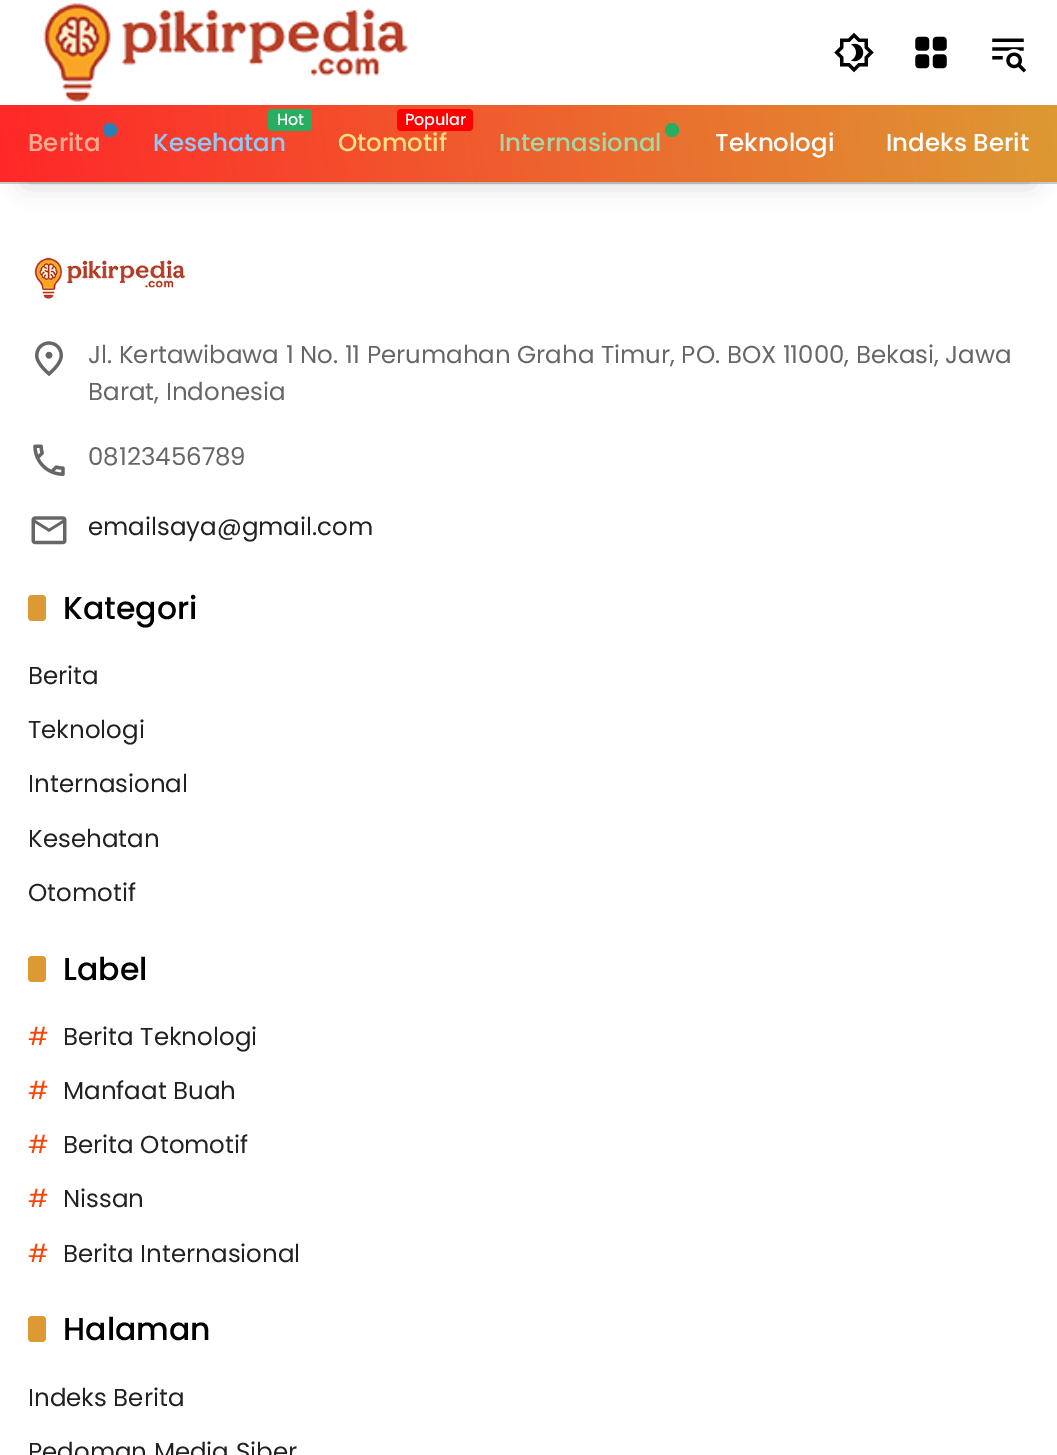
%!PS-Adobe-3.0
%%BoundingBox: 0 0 1057 1455
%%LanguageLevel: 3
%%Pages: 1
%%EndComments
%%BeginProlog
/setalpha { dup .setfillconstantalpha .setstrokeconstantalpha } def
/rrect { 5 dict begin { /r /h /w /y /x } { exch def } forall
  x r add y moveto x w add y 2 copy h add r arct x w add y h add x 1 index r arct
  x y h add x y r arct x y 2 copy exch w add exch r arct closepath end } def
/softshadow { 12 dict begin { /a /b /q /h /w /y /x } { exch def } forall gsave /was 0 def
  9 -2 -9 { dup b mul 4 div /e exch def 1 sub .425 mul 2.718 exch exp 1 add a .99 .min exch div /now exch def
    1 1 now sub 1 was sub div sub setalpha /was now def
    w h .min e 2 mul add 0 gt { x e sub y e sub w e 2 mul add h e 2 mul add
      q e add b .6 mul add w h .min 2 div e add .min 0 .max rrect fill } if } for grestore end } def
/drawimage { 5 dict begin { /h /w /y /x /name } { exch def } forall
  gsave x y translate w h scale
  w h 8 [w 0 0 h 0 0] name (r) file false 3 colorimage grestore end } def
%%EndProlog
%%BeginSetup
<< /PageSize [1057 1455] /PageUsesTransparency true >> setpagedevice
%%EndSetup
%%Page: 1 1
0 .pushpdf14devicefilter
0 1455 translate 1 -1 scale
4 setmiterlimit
1 setgray
0 0 1057 1455 rectfill
(images/1.raw) 43 3 366 99 drawimage
(images/2.raw) 834 32 40 41 drawimage
(images/3.raw) 915 36 32 33 drawimage
(images/4.raw) 992 38 34 35 drawimage
0.8 setgray
0 182 1057 2 rectfill
0 setgray
26 158 1005 24 0 13 0.2 softshadow
gsave newpath 0 105 moveto 1057 105 lineto 1057 182 lineto 0 182 lineto closepath clip newpath
<< /ShadingType 2 /ColorSpace /DeviceRGB /Coords [1054 79 3.2 208] /Extend [true true] /Function << /FunctionType 2 /Domain [0 1] /C0 [0.867 0.6 0.2] /C1 [1 0.157 0.157] /N 1 >> >> shfill grestore
0.161 0.502 0.725 setrgbcolor
newpath 110 130 7 0 360 arc closepath fill
0.153 0.682 0.376 setrgbcolor
268 109 44 22 4 rrect fill
1 0 0 setrgbcolor
397 109 76 22 4 rrect fill
0.153 0.682 0.376 setrgbcolor
newpath 672 130 7 0 360 arc closepath fill
(images/5.raw) 34 257 152 42 drawimage
(images/6.raw) 35 341 28 36 drawimage
(images/7.raw) 33 444 32 32 drawimage
(images/8.raw) 31 516 36 29 drawimage
0.867 0.6 0.2 setrgbcolor
28 595 18 26 4 rrect fill
28 956 18 26 4 rrect fill
28 1316 18 26 4 rrect fill
/Poppins-Medium [24.5 0 0 -24.5 0 0] selectfont
1 0.671 0.569 setrgbcolor
28 151 moveto (Berita) show
/Poppins-Medium [16 0 0 -16 0 0] selectfont
1 setgray
277 125 moveto -0.25 0 (Hot) ashow
/Poppins-Medium [24.5 0 0 -24.5 0 0] selectfont
0.565 0.792 0.976 setrgbcolor
153 151 moveto (Kesehatan) show
/Poppins-Medium [16 0 0 -16 0 0] selectfont
1 setgray
405 125 moveto -0.25 0 (Popular) ashow
/Poppins-Medium [24.5 0 0 -24.5 0 0] selectfont
1 0.878 0.51 setrgbcolor
338 151 moveto (Otomotif) show
0.647 0.839 0.655 setrgbcolor
499 151 moveto (Internasional) show
1 setgray
715 151 moveto (Teknologi) show
886 151 moveto (Indeks Berit) show
/Poppins-Regular [24.5 0 0 -24.5 0 0] selectfont
0.4 setgray
88 363 moveto (Jl. Kertawibawa 1 No. 11 Perumahan Graha Timur, PO. BOX 11000, Bekasi, Jawa) show
88 400 moveto (Barat, Indonesia) show
88 465 moveto (08123456789) show
0.129 setgray
88 535 moveto (emailsaya@gmail.com) show
/Poppins-Medium [31.5 0 0 -31.5 0 0] selectfont
0 setgray
63 619 moveto (Kategori) show
/Poppins-Regular [24.5 0 0 -24.5 0 0] selectfont
0.129 setgray
28 684 moveto (Berita) show
28 738 moveto (Teknologi) show
28 792 moveto (Internasional) show
28 847 moveto (Kesehatan) show
28 901 moveto (Otomotif) show
/Poppins-Medium [31.5 0 0 -31.5 0 0] selectfont
0 setgray
63 980 moveto (Label) show
/Poppins-Regular [24.5 0 0 -24.5 0 0] selectfont
0.976 0.271 0.035 setrgbcolor
28 1045 moveto (#) show
0.129 setgray
63 1045 moveto (Berita Teknologi) show
0.976 0.271 0.035 setrgbcolor
28 1099 moveto (#) show
0.129 setgray
63 1099 moveto (Manfaat Buah) show
0.976 0.271 0.035 setrgbcolor
28 1153 moveto (#) show
0.129 setgray
63 1153 moveto (Berita Otomotif) show
0.976 0.271 0.035 setrgbcolor
28 1207 moveto (#) show
0.129 setgray
63 1207 moveto (Nissan) show
0.976 0.271 0.035 setrgbcolor
28 1262 moveto (#) show
0.129 setgray
63 1262 moveto (Berita Internasional) show
/Poppins-Medium [31.5 0 0 -31.5 0 0] selectfont
0 setgray
63 1340 moveto (Halaman) show
/Poppins-Regular [24.5 0 0 -24.5 0 0] selectfont
0.129 setgray
28 1406 moveto (Indeks Berita) show
28 1460 moveto (Pedoman Media Siber) show
.poppdf14devicefilter showpage
%%EOF
